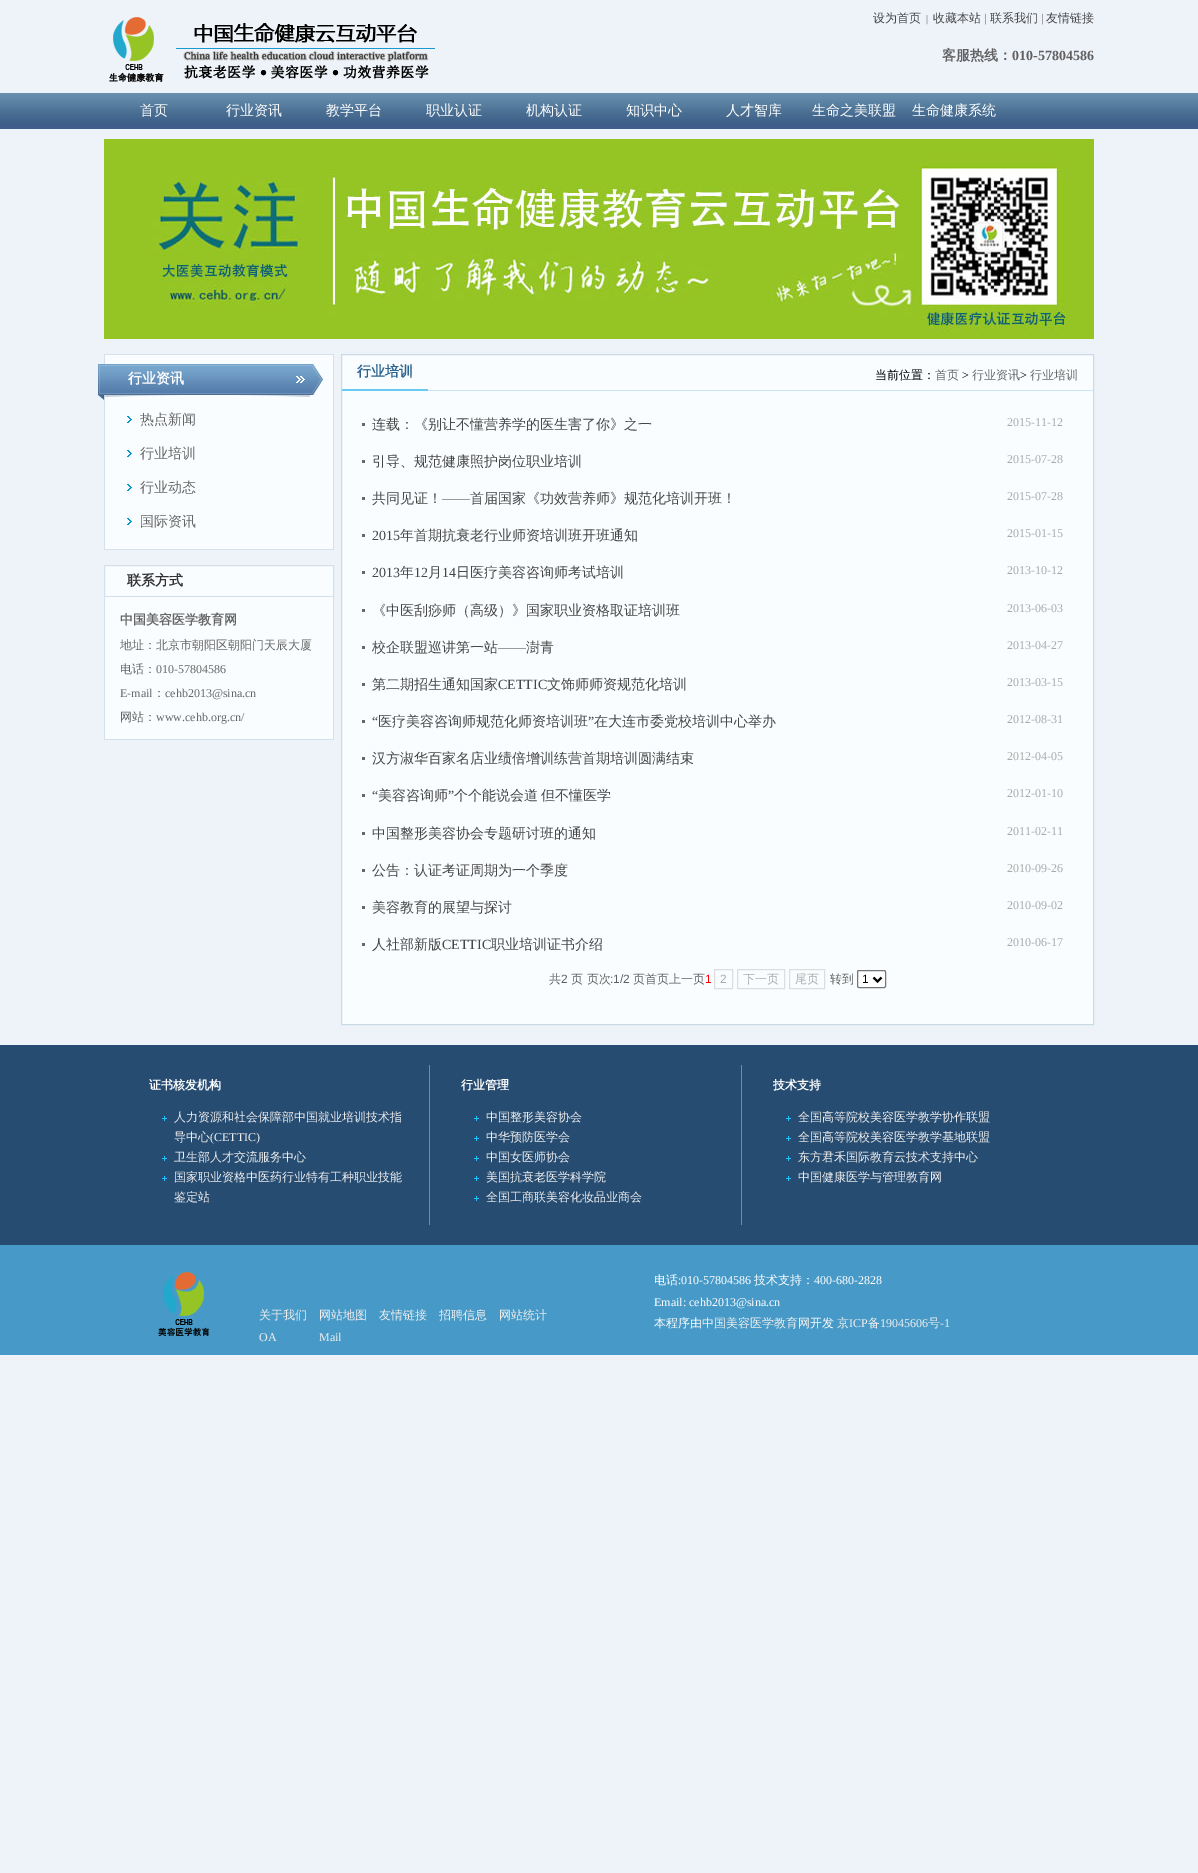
%!PS-Adobe-3.0
%%BoundingBox: 0 0 1198 1873
%%LanguageLevel: 3
%%Pages: 1
%%EndComments
%%BeginProlog
/rrect { 5 dict begin { /r /h /w /y /x } { exch def } forall
  x r add y moveto x w add y 2 copy h add r arct x w add y h add x 1 index r arct
  x y h add x y r arct x y 2 copy exch w add exch r arct closepath end } def
/drawimage { 5 dict begin { /h /w /y /x /name } { exch def } forall
  gsave x y translate w h scale
  w h 8 [w 0 0 h 0 0] name (r) file false 3 colorimage grestore end } def
%%EndProlog
%%BeginSetup
<< /PageSize [1198 1873] >> setpagedevice
%%EndSetup
%%Page: 1 1
0 1873 translate 1 -1 scale
4 setmiterlimit
0.933 0.953 0.98 setrgbcolor
0 0 1198 1873 rectfill
(images/1.raw) 109 17 326 65 drawimage
(images/2.raw) 0 93 1198 36 drawimage
(images/3.raw) 104 139 990 200 drawimage
0.827 0.882 0.929 setrgbcolor
104 354 230 1 rectfill
333 354 1 49 rectfill
104 354 1 49 rectfill
0.98 0.992 1 setrgbcolor
105 355 228 194 rectfill
(images/4.raw) 98 364 225 37 drawimage
0.827 0.882 0.929 setrgbcolor
333 403 1 147 rectfill
104 549 230 1 rectfill
104 403 1 147 rectfill
(images/5.raw) 127 416 5 7 drawimage
(images/5.raw) 127 450 5 7 drawimage
(images/5.raw) 127 484 5 7 drawimage
(images/5.raw) 127 518 5 7 drawimage
0.98 0.992 1 setrgbcolor
newpath 104.5 565.5 moveto 333.5 565.5 lineto 333.5 596.5 lineto 104.5 596.5 lineto closepath gsave fill grestore
0.827 0.882 0.929 setrgbcolor
stroke
0.98 0.992 1 setrgbcolor
105 597 228 142 rectfill
0.827 0.882 0.929 setrgbcolor
333 597 1 143 rectfill
104 739 230 1 rectfill
104 597 1 143 rectfill
0.98 0.992 1 setrgbcolor
newpath 341.5 354.5 moveto 1093.5 354.5 lineto 1093.5 1024.5 lineto 341.5 1024.5 lineto closepath gsave fill grestore
0.792 0.855 0.906 setrgbcolor
stroke
0.8 0.902 0.961 setrgbcolor
428 390 665 1 rectfill
0.412 0.796 0.945 setrgbcolor
342 389 86 2 rectfill
0.4 setgray
362 423 3 3 rectfill
362 460 3 3 rectfill
362 497 3 3 rectfill
362 534 3 3 rectfill
362 571 3 3 rectfill
362 609 3 3 rectfill
362 646 3 3 rectfill
362 683 3 3 rectfill
362 720 3 3 rectfill
362 757 3 3 rectfill
362 794 3 3 rectfill
362 832 3 3 rectfill
362 869 3 3 rectfill
362 906 3 3 rectfill
362 943 3 3 rectfill
0.867 setgray
714.5 969.5 18 19 rectstroke
737.5 969.5 47 19 rectstroke
789.5 969.5 35 19 rectstroke
1 setgray
857.5 970.5 28 17 1.5 rrect gsave fill grestore
0.463 setgray
stroke
0 setgray
2 setlinewidth
newpath 873.5 977.5 moveto 877.5 981.5 lineto 881.5 977.5 lineto stroke
0.278 0.604 0.78 setrgbcolor
0 1245 1198 110 rectfill
0.149 0.298 0.447 setrgbcolor
0 1045 1198 200 rectfill
(images/6.raw) 162 1116 5 5 drawimage
(images/6.raw) 162 1156 5 5 drawimage
(images/6.raw) 162 1176 5 5 drawimage
0.278 0.604 0.78 setrgbcolor
429 1065 1 160 rectfill
(images/6.raw) 474 1116 5 5 drawimage
(images/6.raw) 474 1136 5 5 drawimage
(images/6.raw) 474 1156 5 5 drawimage
(images/6.raw) 474 1176 5 5 drawimage
(images/6.raw) 474 1196 5 5 drawimage
741 1065 1 160 rectfill
(images/6.raw) 786 1116 5 5 drawimage
(images/6.raw) 786 1136 5 5 drawimage
(images/6.raw) 786 1156 5 5 drawimage
(images/6.raw) 786 1176 5 5 drawimage
(images/7.raw) 158 1272 52 65 drawimage
/WenQuanYiZenHei-Medium [12 0 0 -12 0 0] selectfont
0.275 setgray
873 22 moveto (设为首页) show
/LiberationSerif-Regular [10 0 0 -10 0 0] selectfont
0.376 setgray
926 22 moveto (|) show
/WenQuanYiZenHei-Medium [12 0 0 -12 0 0] selectfont
0.275 setgray
933 22 moveto (收藏本站) show
/LiberationSerif-Regular [12 0 0 -12 0 0] selectfont
0.376 setgray
984 22 moveto (|) show
/WenQuanYiZenHei-Medium [12 0 0 -12 0 0] selectfont
0.275 setgray
990 22 moveto (联系我们) show
/LiberationSerif-Regular [12 0 0 -12 0 0] selectfont
0.376 setgray
1041 22 moveto (|) show
/WenQuanYiZenHei-Medium [12 0 0 -12 0 0] selectfont
0.275 setgray
1046 22 moveto (友情链接) show
/WenQuanYiZenHei-Bold [14 0 0 -14 0 0] selectfont
0.376 setgray
942 60 moveto (客服热线：) show
/LiberationSerif-Bold [14 0 0 -14 0 0] selectfont
1012 60 moveto (010-57804586) show
/WenQuanYiZenHei-Medium [14 0 0 -14 0 0] selectfont
1 setgray
140 115 moveto (首页) show
226 115 moveto (行业资讯) show
326 115 moveto (教学平台) show
426 115 moveto (职业认证) show
526 115 moveto (机构认证) show
626 115 moveto (知识中心) show
726 115 moveto (人才智库) show
812 115 moveto (生命之美联盟) show
912 115 moveto (生命健康系统) show
/WenQuanYiZenHei-Bold [14 0 0 -14 0 0] selectfont
128 383 moveto (行业资讯) show
/WenQuanYiZenHei-Medium [14 0 0 -14 0 0] selectfont
0.4 setgray
140 424 moveto (热点新闻) show
140 458 moveto (行业培训) show
140 492 moveto (行业动态) show
140 526 moveto (国际资讯) show
/WenQuanYiZenHei-Bold [14 0 0 -14 0 0] selectfont
0.2 setgray
127 585 moveto (联系方式) show
/WenQuanYiZenHei-Bold [13 0 0 -13 0 0] selectfont
0.4 setgray
120 624 moveto (中国美容医学教育网) show
/WenQuanYiZenHei-Medium [12 0 0 -12 0 0] selectfont
120 649 moveto (地址：北京市朝阳区朝阳门天辰大厦) show
120 673 moveto (电话：) show
/LiberationSerif-Regular [12 0 0 -12 0 0] selectfont
156 673 moveto (010-57804586) show
120 697 moveto (E-mail) show
/WenQuanYiZenHei-Medium [12 0 0 -12 0 0] selectfont
153 697 moveto (：) show
/LiberationSerif-Regular [12 0 0 -12 0 0] selectfont
165 697 moveto (cehb2013@sina.cn) show
/WenQuanYiZenHei-Medium [12 0 0 -12 0 0] selectfont
120 721 moveto (网站：) show
/LiberationSerif-Regular [12 0 0 -12 0 0] selectfont
156 721 moveto (www.cehb.org.cn/) show
/WenQuanYiZenHei-Bold [14 0 0 -14 0 0] selectfont
0.176 0.392 0.561 setrgbcolor
357 376 moveto (行业培训) show
/WenQuanYiZenHei-Medium [12 0 0 -12 0 0] selectfont
0 setgray
875 379 moveto (当前位置：) show
0.4 setgray
935 379 moveto (首页) show
/LiberationSerif-Regular [12 0 0 -12 0 0] selectfont
0 setgray
962 379 moveto (>) show
/WenQuanYiZenHei-Medium [12 0 0 -12 0 0] selectfont
0.4 setgray
972 379 moveto (行业资讯) show
/LiberationSerif-Regular [12 0 0 -12 0 0] selectfont
0 setgray
1020 379 moveto (>) show
/WenQuanYiZenHei-Medium [12 0 0 -12 0 0] selectfont
0.4 setgray
1030 379 moveto (行业培训) show
/WenQuanYiZenHei-Medium [14 0 0 -14 0 0] selectfont
0.275 setgray
372 429 moveto (连载：《别让不懂营养学的医生害了你》之一) show
/LiberationSerif-Regular [12 0 0 -12 0 0] selectfont
0.667 setgray
1007 426 moveto (2015-11-12) show
/WenQuanYiZenHei-Medium [14 0 0 -14 0 0] selectfont
0.275 setgray
372 466 moveto (引导、规范健康照护岗位职业培训) show
/LiberationSerif-Regular [12 0 0 -12 0 0] selectfont
0.667 setgray
1007 463 moveto (2015-07-28) show
/WenQuanYiZenHei-Medium [14 0 0 -14 0 0] selectfont
0.275 setgray
372 503 moveto (共同见证！) show
/LiberationSerif-Regular [14 0 0 -14 0 0] selectfont
442 503 moveto (——) show
/WenQuanYiZenHei-Medium [14 0 0 -14 0 0] selectfont
470 503 moveto (首届国家《功效营养师》规范化培训开班！) show
/LiberationSerif-Regular [12 0 0 -12 0 0] selectfont
0.667 setgray
1007 500 moveto (2015-07-28) show
/LiberationSerif-Regular [14 0 0 -14 0 0] selectfont
0.275 setgray
372 540 moveto (2015) show
/WenQuanYiZenHei-Medium [14 0 0 -14 0 0] selectfont
400 540 moveto (年首期抗衰老行业师资培训班开班通知) show
/LiberationSerif-Regular [12 0 0 -12 0 0] selectfont
0.667 setgray
1007 537 moveto (2015-01-15) show
/LiberationSerif-Regular [14 0 0 -14 0 0] selectfont
0.275 setgray
372 577 moveto (2013) show
/WenQuanYiZenHei-Medium [14 0 0 -14 0 0] selectfont
400 577 moveto (年) show
/LiberationSerif-Regular [14 0 0 -14 0 0] selectfont
414 577 moveto (12) show
/WenQuanYiZenHei-Medium [14 0 0 -14 0 0] selectfont
428 577 moveto (月) show
/LiberationSerif-Regular [14 0 0 -14 0 0] selectfont
442 577 moveto (14) show
/WenQuanYiZenHei-Medium [14 0 0 -14 0 0] selectfont
456 577 moveto (日医疗美容咨询师考试培训) show
/LiberationSerif-Regular [12 0 0 -12 0 0] selectfont
0.667 setgray
1007 574 moveto (2013-10-12) show
/WenQuanYiZenHei-Medium [14 0 0 -14 0 0] selectfont
0.275 setgray
372 615 moveto (《中医刮痧师（高级）》国家职业资格取证培训班) show
/LiberationSerif-Regular [12 0 0 -12 0 0] selectfont
0.667 setgray
1007 612 moveto (2013-06-03) show
/WenQuanYiZenHei-Medium [14 0 0 -14 0 0] selectfont
0.275 setgray
372 652 moveto (校企联盟巡讲第一站) show
/LiberationSerif-Regular [14 0 0 -14 0 0] selectfont
498 652 moveto (——) show
/WenQuanYiZenHei-Medium [14 0 0 -14 0 0] selectfont
526 652 moveto (澍青) show
/LiberationSerif-Regular [12 0 0 -12 0 0] selectfont
0.667 setgray
1007 649 moveto (2013-04-27) show
/WenQuanYiZenHei-Medium [14 0 0 -14 0 0] selectfont
0.275 setgray
372 689 moveto (第二期招生通知国家) show
/LiberationSerif-Regular [14 0 0 -14 0 0] selectfont
498 689 moveto (CETTIC) show
/WenQuanYiZenHei-Medium [14 0 0 -14 0 0] selectfont
547 689 moveto (文饰师师资规范化培训) show
/LiberationSerif-Regular [12 0 0 -12 0 0] selectfont
0.667 setgray
1007 686 moveto (2013-03-15) show
/LiberationSerif-Regular [14 0 0 -14 0 0] selectfont
0.275 setgray
372 726 moveto (“) show
/WenQuanYiZenHei-Medium [14 0 0 -14 0 0] selectfont
378 726 moveto (医疗美容咨询师规范化师资培训班) show
/LiberationSerif-Regular [14 0 0 -14 0 0] selectfont
588 726 moveto (”) show
/WenQuanYiZenHei-Medium [14 0 0 -14 0 0] selectfont
594 726 moveto (在大连市委党校培训中心举办) show
/LiberationSerif-Regular [12 0 0 -12 0 0] selectfont
0.667 setgray
1007 723 moveto (2012-08-31) show
/WenQuanYiZenHei-Medium [14 0 0 -14 0 0] selectfont
0.275 setgray
372 763 moveto (汉方淑华百家名店业绩倍增训练营首期培训圆满结束) show
/LiberationSerif-Regular [12 0 0 -12 0 0] selectfont
0.667 setgray
1007 760 moveto (2012-04-05) show
/LiberationSerif-Regular [14 0 0 -14 0 0] selectfont
0.275 setgray
372 800 moveto (“) show
/WenQuanYiZenHei-Medium [14 0 0 -14 0 0] selectfont
378 800 moveto (美容咨询师) show
/LiberationSerif-Regular [14 0 0 -14 0 0] selectfont
448 800 moveto (”) show
/WenQuanYiZenHei-Medium [14 0 0 -14 0 0] selectfont
454 800 moveto -1 0 32 (个个能说会道 但不懂医学) widthshow
/LiberationSerif-Regular [12 0 0 -12 0 0] selectfont
0.667 setgray
1007 797 moveto (2012-01-10) show
/WenQuanYiZenHei-Medium [14 0 0 -14 0 0] selectfont
0.275 setgray
372 838 moveto (中国整形美容协会专题研讨班的通知) show
/LiberationSerif-Regular [12 0 0 -12 0 0] selectfont
0.667 setgray
1007 835 moveto (2011-02-11) show
/WenQuanYiZenHei-Medium [14 0 0 -14 0 0] selectfont
0.275 setgray
372 875 moveto (公告：认证考证周期为一个季度) show
/LiberationSerif-Regular [12 0 0 -12 0 0] selectfont
0.667 setgray
1007 872 moveto (2010-09-26) show
/WenQuanYiZenHei-Medium [14 0 0 -14 0 0] selectfont
0.275 setgray
372 912 moveto (美容教育的展望与探讨) show
/LiberationSerif-Regular [12 0 0 -12 0 0] selectfont
0.667 setgray
1007 909 moveto (2010-09-02) show
/WenQuanYiZenHei-Medium [14 0 0 -14 0 0] selectfont
0.275 setgray
372 949 moveto (人社部新版) show
/LiberationSerif-Regular [14 0 0 -14 0 0] selectfont
442 949 moveto (CETTIC) show
/WenQuanYiZenHei-Medium [14 0 0 -14 0 0] selectfont
491 949 moveto (职业培训证书介绍) show
/LiberationSerif-Regular [12 0 0 -12 0 0] selectfont
0.667 setgray
1007 946 moveto (2010-06-17) show
/WenQuanYiZenHei-Medium [12 0 0 -12 0 0] selectfont
0.376 setgray
549 983 moveto (共) show
/LiberationSans-Regular [12 0 0 -12 0 0] selectfont
561 983 moveto (2) show
/WenQuanYiZenHei-Medium [12 0 0 -12 0 0] selectfont
571 983 moveto (页 页次) show
/LiberationSans-Regular [12 0 0 -12 0 0] selectfont
610 983 moveto (:1/2) show
/WenQuanYiZenHei-Medium [12 0 0 -12 0 0] selectfont
633 983 moveto (页首页上一页) show
/LiberationSans-Regular [12 0 0 -12 0 0] selectfont
1 0 0 setrgbcolor
705 983 moveto (1) show
0.667 setgray
720 983 moveto (2) show
/WenQuanYiZenHei-Medium [12 0 0 -12 0 0] selectfont
743 983 moveto (下一页) show
795 983 moveto (尾页) show
0.376 setgray
830 983 moveto (转到) show
/LiberationSans-Regular [12 0 0 -12 0 0] selectfont
0 setgray
862 983 moveto (1) show
/WenQuanYiZenHei-Bold [12 0 0 -12 0 0] selectfont
1 setgray
149 1089 moveto (证书核发机构) show
/WenQuanYiZenHei-Medium [12 0 0 -12 0 0] selectfont
0.933 setgray
174 1121 moveto (人力资源和社会保障部中国就业培训技术指) show
174 1141 moveto (导中心) show
/LiberationSerif-Regular [12 0 0 -12 0 0] selectfont
210 1141 moveto (\(CETTIC\)) show
/WenQuanYiZenHei-Medium [12 0 0 -12 0 0] selectfont
174 1161 moveto (卫生部人才交流服务中心) show
174 1181 moveto (国家职业资格中医药行业特有工种职业技能) show
174 1201 moveto (鉴定站) show
/WenQuanYiZenHei-Bold [12 0 0 -12 0 0] selectfont
1 setgray
461 1089 moveto (行业管理) show
/WenQuanYiZenHei-Medium [12 0 0 -12 0 0] selectfont
0.933 setgray
486 1121 moveto (中国整形美容协会) show
486 1141 moveto (中华预防医学会) show
486 1161 moveto (中国女医师协会) show
486 1181 moveto (美国抗衰老医学科学院) show
486 1201 moveto (全国工商联美容化妆品业商会) show
/WenQuanYiZenHei-Bold [12 0 0 -12 0 0] selectfont
1 setgray
773 1089 moveto (技术支持) show
/WenQuanYiZenHei-Medium [12 0 0 -12 0 0] selectfont
0.933 setgray
798 1121 moveto (全国高等院校美容医学教学协作联盟) show
798 1141 moveto (全国高等院校美容医学教学基地联盟) show
798 1161 moveto (东方君禾国际教育云技术支持中心) show
798 1181 moveto (中国健康医学与管理教育网) show
259 1319 moveto (关于我们) show
319 1319 moveto (网站地图) show
379 1319 moveto (友情链接) show
439 1319 moveto (招聘信息) show
499 1319 moveto (网站统计) show
/LiberationSerif-Regular [12 0 0 -12 0 0] selectfont
259 1341 moveto (OA) show
319 1341 moveto (Mail) show
/WenQuanYiZenHei-Medium [12 0 0 -12 0 0] selectfont
1 setgray
654 1284 moveto (电话) show
/LiberationSerif-Regular [12 0 0 -12 0 0] selectfont
678 1284 moveto (:010-57804586) show
/WenQuanYiZenHei-Medium [12 0 0 -12 0 0] selectfont
754 1284 moveto (技术支持：) show
/LiberationSerif-Regular [12 0 0 -12 0 0] selectfont
814 1284 moveto (400-680-2828) show
654 1306 moveto (Email: cehb2013@sina.cn) show
/WenQuanYiZenHei-Medium [12 0 0 -12 0 0] selectfont
654 1327 moveto (本程序由) show
0.933 setgray
702 1327 moveto (中国美容医学教育网) show
1 setgray
810 1327 moveto (开发) show
0.933 setgray
837 1327 moveto (京) show
/LiberationSerif-Regular [12 0 0 -12 0 0] selectfont
849 1327 moveto (ICP) show
/WenQuanYiZenHei-Medium [12 0 0 -12 0 0] selectfont
868 1327 moveto (备) show
/LiberationSerif-Regular [12 0 0 -12 0 0] selectfont
880 1327 moveto (19045606) show
/WenQuanYiZenHei-Medium [12 0 0 -12 0 0] selectfont
928 1327 moveto (号) show
/LiberationSerif-Regular [12 0 0 -12 0 0] selectfont
940 1327 moveto (-1) show
showpage
%%EOF
